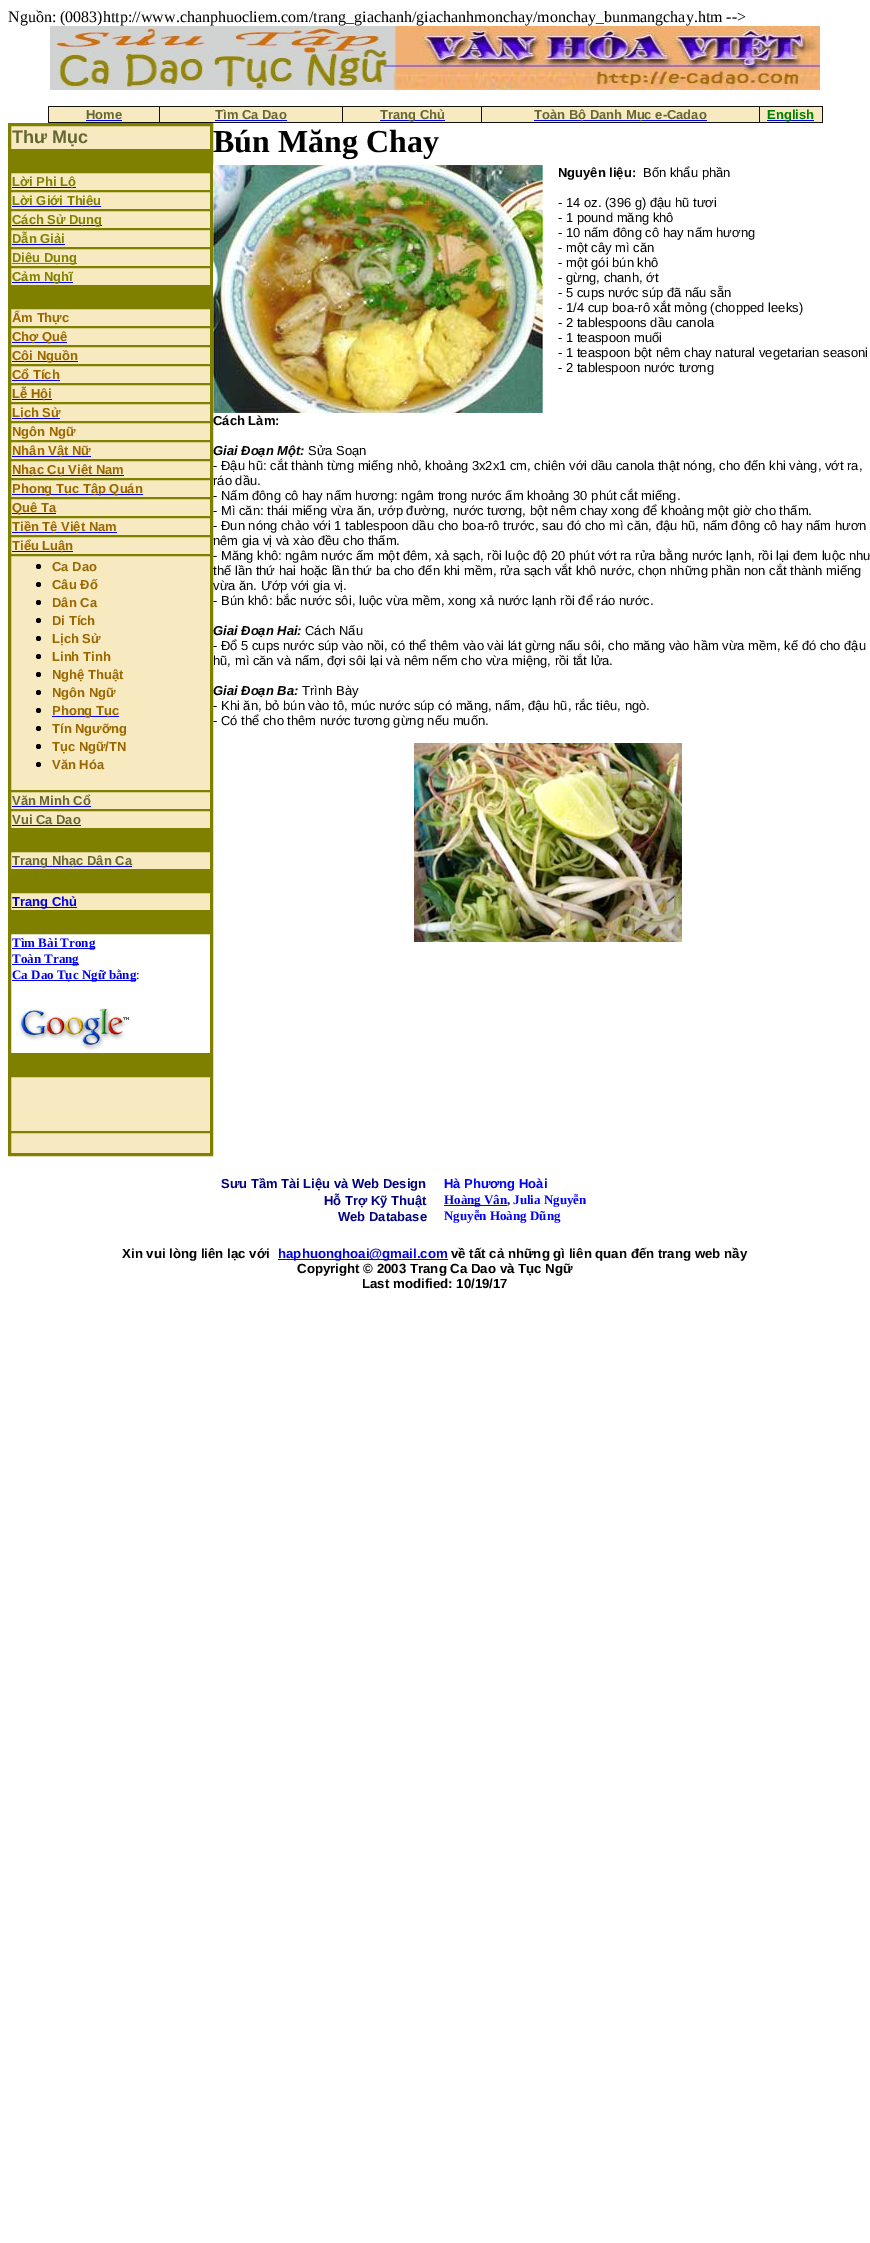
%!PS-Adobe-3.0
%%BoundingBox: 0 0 870 2243
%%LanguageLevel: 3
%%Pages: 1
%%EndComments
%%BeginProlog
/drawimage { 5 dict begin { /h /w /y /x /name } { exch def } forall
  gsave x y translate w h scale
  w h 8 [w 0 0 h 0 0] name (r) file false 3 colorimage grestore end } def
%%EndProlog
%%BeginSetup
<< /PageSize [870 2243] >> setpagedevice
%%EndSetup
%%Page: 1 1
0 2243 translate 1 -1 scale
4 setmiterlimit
1 setgray
0 0 870 2243 rectfill
(images/1.raw) 50 26 770 64 drawimage
0.067 setgray
48 106 775 1 rectfill
822 106 1 17 rectfill
48 122 775 1 rectfill
48 106 1 17 rectfill
0.969 0.918 0.757 setrgbcolor
49 107 110 15 rectfill
0 0 0.933 setrgbcolor
86 120 36 1 rectfill
0.969 0.918 0.757 setrgbcolor
160 107 182 15 rectfill
0.067 setgray
159 106 1 17 rectfill
0 0 0.933 setrgbcolor
215 120 72 1 rectfill
0.969 0.918 0.757 setrgbcolor
343 107 138 15 rectfill
0.067 setgray
342 106 1 17 rectfill
0 0 0.933 setrgbcolor
380 120 65 1 rectfill
0.969 0.918 0.757 setrgbcolor
482 107 277 15 rectfill
0.067 setgray
481 106 1 17 rectfill
0 0 0.933 setrgbcolor
534 120 173 1 rectfill
0.969 0.918 0.757 setrgbcolor
760 107 62 15 rectfill
0.067 setgray
759 106 1 17 rectfill
0 0 0.933 setrgbcolor
767 120 47 1 rectfill
0.502 0.502 0 setrgbcolor
2 setlinewidth
9 124 203 1031 rectstroke
0.969 0.918 0.757 setrgbcolor
newpath 10.5 125.5 moveto 210.5 125.5 lineto 210.5 149.5 lineto 10.5 149.5 lineto closepath gsave fill grestore
0.502 0.502 0 setrgbcolor
1 setlinewidth
stroke
10 150 201 22 rectfill
0.969 0.918 0.757 setrgbcolor
newpath 10.5 172.5 moveto 210.5 172.5 lineto 210.5 190.5 lineto 10.5 190.5 lineto closepath gsave fill grestore
0.502 0.502 0 setrgbcolor
stroke
0 0 0.933 setrgbcolor
12 187 64 1 rectfill
0.969 0.918 0.757 setrgbcolor
newpath 10.5 191.5 moveto 210.5 191.5 lineto 210.5 209.5 lineto 10.5 209.5 lineto closepath gsave fill grestore
0.502 0.502 0 setrgbcolor
stroke
0 0 0.933 setrgbcolor
12 206 89 1 rectfill
0.969 0.918 0.757 setrgbcolor
newpath 10.5 210.5 moveto 210.5 210.5 lineto 210.5 228.5 lineto 10.5 228.5 lineto closepath gsave fill grestore
0.502 0.502 0 setrgbcolor
stroke
0 0 0.933 setrgbcolor
12 225 90 1 rectfill
0.969 0.918 0.757 setrgbcolor
newpath 10.5 229.5 moveto 210.5 229.5 lineto 210.5 247.5 lineto 10.5 247.5 lineto closepath gsave fill grestore
0.502 0.502 0 setrgbcolor
stroke
0 0 0.933 setrgbcolor
12 244 53 1 rectfill
0.969 0.918 0.757 setrgbcolor
newpath 10.5 248.5 moveto 210.5 248.5 lineto 210.5 266.5 lineto 10.5 266.5 lineto closepath gsave fill grestore
0.502 0.502 0 setrgbcolor
stroke
12 263 65 1 rectfill
0.969 0.918 0.757 setrgbcolor
newpath 10.5 267.5 moveto 210.5 267.5 lineto 210.5 285.5 lineto 10.5 285.5 lineto closepath gsave fill grestore
0.502 0.502 0 setrgbcolor
stroke
0 0 0.933 setrgbcolor
12 282 61 1 rectfill
0.502 0.502 0 setrgbcolor
10 286 201 22 rectfill
0.969 0.918 0.757 setrgbcolor
newpath 10.5 308.5 moveto 210.5 308.5 lineto 210.5 326.5 lineto 10.5 326.5 lineto closepath gsave fill grestore
0.502 0.502 0 setrgbcolor
stroke
0.969 0.918 0.757 setrgbcolor
newpath 10.5 327.5 moveto 210.5 327.5 lineto 210.5 345.5 lineto 10.5 345.5 lineto closepath gsave fill grestore
0.502 0.502 0 setrgbcolor
stroke
0 0 0.933 setrgbcolor
12 342 55 1 rectfill
0.969 0.918 0.757 setrgbcolor
newpath 10.5 346.5 moveto 210.5 346.5 lineto 210.5 364.5 lineto 10.5 364.5 lineto closepath gsave fill grestore
0.502 0.502 0 setrgbcolor
stroke
0 0 0.933 setrgbcolor
12 361 66 1 rectfill
0.969 0.918 0.757 setrgbcolor
newpath 10.5 365.5 moveto 210.5 365.5 lineto 210.5 383.5 lineto 10.5 383.5 lineto closepath gsave fill grestore
0.502 0.502 0 setrgbcolor
stroke
0 0 0.933 setrgbcolor
12 380 48 1 rectfill
0.969 0.918 0.757 setrgbcolor
newpath 10.5 384.5 moveto 210.5 384.5 lineto 210.5 402.5 lineto 10.5 402.5 lineto closepath gsave fill grestore
0.502 0.502 0 setrgbcolor
stroke
0 0 0.933 setrgbcolor
12 399 40 1 rectfill
0.969 0.918 0.757 setrgbcolor
newpath 10.5 403.5 moveto 210.5 403.5 lineto 210.5 421.5 lineto 10.5 421.5 lineto closepath gsave fill grestore
0.502 0.502 0 setrgbcolor
stroke
0 0 0.933 setrgbcolor
12 418 48 1 rectfill
0.969 0.918 0.757 setrgbcolor
newpath 10.5 422.5 moveto 210.5 422.5 lineto 210.5 440.5 lineto 10.5 440.5 lineto closepath gsave fill grestore
0.502 0.502 0 setrgbcolor
stroke
0.969 0.918 0.757 setrgbcolor
newpath 10.5 441.5 moveto 210.5 441.5 lineto 210.5 459.5 lineto 10.5 459.5 lineto closepath gsave fill grestore
0.502 0.502 0 setrgbcolor
stroke
0 0 0.933 setrgbcolor
12 456 79 1 rectfill
0.969 0.918 0.757 setrgbcolor
newpath 10.5 460.5 moveto 210.5 460.5 lineto 210.5 478.5 lineto 10.5 478.5 lineto closepath gsave fill grestore
0.502 0.502 0 setrgbcolor
stroke
0 0 0.933 setrgbcolor
12 475 112 1 rectfill
0.969 0.918 0.757 setrgbcolor
newpath 10.5 479.5 moveto 210.5 479.5 lineto 210.5 497.5 lineto 10.5 497.5 lineto closepath gsave fill grestore
0.502 0.502 0 setrgbcolor
stroke
0 0 0.933 setrgbcolor
12 494 131 1 rectfill
0.969 0.918 0.757 setrgbcolor
newpath 10.5 498.5 moveto 210.5 498.5 lineto 210.5 516.5 lineto 10.5 516.5 lineto closepath gsave fill grestore
0.502 0.502 0 setrgbcolor
stroke
0 0 0.933 setrgbcolor
12 513 44 1 rectfill
0.969 0.918 0.757 setrgbcolor
newpath 10.5 517.5 moveto 210.5 517.5 lineto 210.5 535.5 lineto 10.5 535.5 lineto closepath gsave fill grestore
0.502 0.502 0 setrgbcolor
stroke
0 0 0.933 setrgbcolor
12 532 105 1 rectfill
0.969 0.918 0.757 setrgbcolor
newpath 10.5 536.5 moveto 210.5 536.5 lineto 210.5 554.5 lineto 10.5 554.5 lineto closepath gsave fill grestore
0.502 0.502 0 setrgbcolor
stroke
0 0 0.933 setrgbcolor
12 551 61 1 rectfill
0.969 0.918 0.757 setrgbcolor
newpath 10.5 555.5 moveto 210.5 555.5 lineto 210.5 790.5 lineto 10.5 790.5 lineto closepath gsave fill grestore
0.502 0.502 0 setrgbcolor
stroke
0 setgray
newpath 38.5 566.5 2.5 0 360 arc closepath fill
newpath 38.5 584.5 2.5 0 360 arc closepath fill
newpath 38.5 602.5 2.5 0 360 arc closepath fill
newpath 38.5 620.5 2.5 0 360 arc closepath fill
newpath 38.5 638.5 2.5 0 360 arc closepath fill
newpath 38.5 656.5 2.5 0 360 arc closepath fill
newpath 38.5 674.5 2.5 0 360 arc closepath fill
newpath 38.5 692.5 2.5 0 360 arc closepath fill
newpath 38.5 710.5 2.5 0 360 arc closepath fill
0 0 0.933 setrgbcolor
52 716 67 1 rectfill
0 setgray
newpath 38.5 728.5 2.5 0 360 arc closepath fill
newpath 38.5 746.5 2.5 0 360 arc closepath fill
newpath 38.5 764.5 2.5 0 360 arc closepath fill
0.969 0.918 0.757 setrgbcolor
newpath 10.5 791.5 moveto 210.5 791.5 lineto 210.5 809.5 lineto 10.5 809.5 lineto closepath gsave fill grestore
0.502 0.502 0 setrgbcolor
stroke
0 0 0.933 setrgbcolor
12 806 79 1 rectfill
0.969 0.918 0.757 setrgbcolor
newpath 10.5 810.5 moveto 210.5 810.5 lineto 210.5 828.5 lineto 10.5 828.5 lineto closepath gsave fill grestore
0.502 0.502 0 setrgbcolor
stroke
0 0 0.933 setrgbcolor
12 825 69 1 rectfill
0.502 0.502 0 setrgbcolor
10 829 201 22 rectfill
0.969 0.918 0.757 setrgbcolor
newpath 10.5 851.5 moveto 210.5 851.5 lineto 210.5 869.5 lineto 10.5 869.5 lineto closepath gsave fill grestore
0.502 0.502 0 setrgbcolor
stroke
0 0 0.933 setrgbcolor
12 866 120 1 rectfill
0.502 0.502 0 setrgbcolor
10 870 201 22 rectfill
0.969 0.918 0.757 setrgbcolor
newpath 10.5 892.5 moveto 210.5 892.5 lineto 210.5 910.5 lineto 10.5 910.5 lineto closepath gsave fill grestore
0.502 0.502 0 setrgbcolor
stroke
0 0 0.933 setrgbcolor
12 907 65 1 rectfill
0.502 0.502 0 setrgbcolor
10 911 201 22 rectfill
10.5 933.5 200 120 rectstroke
0 0 0.933 setrgbcolor
12 948 83 1 rectfill
12 964 67 1 rectfill
12 980 124 1 rectfill
(images/2.raw) 19 1008 110 42 drawimage
0.502 0.502 0 setrgbcolor
10 1054 201 22 rectfill
0.969 0.918 0.757 setrgbcolor
newpath 10.5 1076.5 moveto 210.5 1076.5 lineto 210.5 1131.5 lineto 10.5 1131.5 lineto closepath gsave fill grestore
0.502 0.502 0 setrgbcolor
stroke
0.969 0.918 0.757 setrgbcolor
newpath 10.5 1132.5 moveto 210.5 1132.5 lineto 210.5 1153.5 lineto 10.5 1153.5 lineto closepath gsave fill grestore
0.502 0.502 0 setrgbcolor
stroke
(images/3.raw) 213 165 330 248 drawimage
(images/4.raw) 414 743 268 199 drawimage
0 0 0.933 setrgbcolor
444 1205 63 1 rectfill
278 1259 170 1 rectfill
/LiberationSerif-Regular [16 0 0 -16 0 0] selectfont
0 setgray
8 22 moveto (Nguồn: \(0083\)http://www.chanphuocliem.com/trang_giachanh/giachanhmonchay/monchay_bunmangchay.htm -->) show
/LiberationSans-Bold [13 0 0 -13 0 0] selectfont
0.4 0.4 0.2 setrgbcolor
86 119 moveto (Home) show
215 119 moveto (Tìm Ca Dao) show
380 119 moveto (Trang Chủ) show
534 119 moveto (Toàn Bộ Danh Mục e-Cadao) show
0 0.502 0 setrgbcolor
767 119 moveto (English) show
/LiberationSans-Bold [18 0 0 -18 0 0] selectfont
0.4 0.4 0.2 setrgbcolor
12 143 moveto (Thư Mục) show
/LiberationSans-Bold [13 0 0 -13 0 0] selectfont
0.502 0.502 0 setrgbcolor
12 186 moveto (Lời Phi Lộ) show
12 205 moveto (Lời Giới Thiệu) show
12 224 moveto (Cách Sử Dụng) show
12 243 moveto (Dẫn Giải) show
12 262 moveto (Diêu Dụng) show
12 281 moveto (Cảm Nghĩ) show
0.6 0.4 0 setrgbcolor
12 322 moveto (Ẩm Thực) show
12 341 moveto (Chợ Quê) show
12 360 moveto (Cội Nguồn) show
12 379 moveto (Cổ Tích) show
12 398 moveto (Lễ Hội) show
12 417 moveto (Lịch Sử) show
12 436 moveto (Ngôn Ngữ) show
12 455 moveto (Nhân Vật Nữ) show
12 474 moveto (Nhạc Cụ Việt Nam) show
12 493 moveto (Phong Tục Tập Quán) show
12 512 moveto (Quê Ta) show
12 531 moveto (Tiền Tệ Việt Nam) show
12 550 moveto (Tiểu Luận) show
52 571 moveto (Ca Dao) show
52 589 moveto (Câu Đố) show
52 607 moveto (Dân Ca) show
52 625 moveto (Di Tích) show
52 643 moveto (Lịch Sử) show
52 661 moveto (Linh Tinh) show
52 679 moveto (Nghệ Thuật) show
52 697 moveto (Ngôn Ngữ) show
52 715 moveto (Phong Tục) show
52 733 moveto (Tín Ngưỡng) show
52 751 moveto (Tục Ngữ/TN) show
52 769 moveto (Văn Hóa) show
0.4 0.4 0.2 setrgbcolor
12 805 moveto (Văn Minh Cổ) show
12 824 moveto (Vui Ca Dao) show
12 865 moveto (Trang Nhạc Dân Ca) show
0 0 0.933 setrgbcolor
12 906 moveto (Trang Chủ) show
/LiberationSerif-Bold [13 0 0 -13 0 0] selectfont
12 947 moveto (Tìm Bài Trong) show
12 963 moveto (Toàn Trang) show
12 979 moveto (Ca Dao Tục Ngữ bằng) show
/LiberationSerif-Regular [13 0 0 -13 0 0] selectfont
136 979 moveto (:) show
/LiberationSerif-Bold [32 0 0 -32 0 0] selectfont
0 setgray
213 152 moveto (Bún Măng Chay) show
/LiberationSans-Bold [13 0 0 -13 0 0] selectfont
558 177 moveto (Nguyên liệu:) show
/LiberationSans-Regular [13 0 0 -13 0 0] selectfont
643 177 moveto (Bốn khẩu phần) show
558 207 moveto (- 14 oz. \(396 g\) đậu hũ tươi) show
558 222 moveto (- 1 pound măng khô) show
558 237 moveto (- 10 nấm đông cô hay nấm hương) show
558 252 moveto (- một cây mì căn) show
558 267 moveto (- một gói bún khô) show
558 282 moveto (- gừng, chanh, ớt) show
558 297 moveto (- 5 cups nước súp đã nấu sẵn) show
558 312 moveto (- 1/4 cup boa-rô xắt mỏng \(chopped leeks\)) show
558 327 moveto (- 2 tablespoons dầu canola) show
558 342 moveto (- 1 teaspoon muối) show
558 357 moveto (- 1 teaspoon bột nêm chay natural vegetarian seasoni) show
558 372 moveto (- 2 tablespoon nước tương) show
/LiberationSans-Bold [13 0 0 -13 0 0] selectfont
213 425 moveto (Cách Làm:) show
/LiberationSans-BoldItalic [13 0 0 -13 0 0] selectfont
213 455 moveto (Giai Đoạn Một:) show
/LiberationSans-Regular [13 0 0 -13 0 0] selectfont
308 455 moveto (Sửa Soạn) show
213 470 moveto (- Đậu hũ: cắt thành từng miếng nhỏ, khoảng 3x2x1 cm, chiên với dầu canola thật nóng, cho đến khi vàng, vớt ra,) show
213 485 moveto (ráo dầu.) show
213 500 moveto (- Nấm đông cô hay nấm hương: ngâm trong nước ấm khoảng 30 phút cắt miếng.) show
213 515 moveto (- Mì căn: thái miếng vừa ăn, ướp đường, nước tương, bột nêm chay xong để khoảng một giờ cho thấm.) show
213 530 moveto (- Đun nóng chảo với 1 tablespoon dầu cho boa-rô trước, sau đó cho mì căn, đậu hũ, nấm đông cô hay nấm hươn) show
213 545 moveto (nêm gia vị và xào đều cho thấm.) show
213 560 moveto (- Măng khô: ngâm nước ấm một đêm, xả sạch, rồi luộc độ 20 phút vớt ra rửa bằng nước lạnh, rồi lại đem luộc như) show
213 575 moveto (thế lần thứ hai hoặc lần thứ ba cho đến khi mềm, rửa sạch vắt khô nước, chọn những phần non cắt thành miếng) show
213 590 moveto (vừa ăn. Ướp với gia vị.) show
213 605 moveto (- Bún khô: bắc nước sôi, luộc vừa mềm, xong xả nước lạnh rồi để ráo nước.) show
/LiberationSans-BoldItalic [13 0 0 -13 0 0] selectfont
213 635 moveto (Giai Đoạn Hai:) show
/LiberationSans-Regular [13 0 0 -13 0 0] selectfont
305 635 moveto (Cách Nấu) show
213 650 moveto (- Đổ 5 cups nước súp vào nồi, có thể thêm vào vài lát gừng nấu sôi, cho măng vào hầm vừa mềm, kế đó cho đậu) show
213 665 moveto (hũ, mì căn và nấm, đợi sôi lại và nêm nếm cho vừa miệng, rồi tắt lửa.) show
/LiberationSans-BoldItalic [13 0 0 -13 0 0] selectfont
213 695 moveto (Giai Đoạn Ba:) show
/LiberationSans-Regular [13 0 0 -13 0 0] selectfont
302 695 moveto (Trình Bày) show
213 710 moveto (- Khi ăn, bỏ bún vào tô, múc nước súp có măng, nấm, đậu hũ, rắc tiêu, ngò.) show
213 725 moveto (- Có thể cho thêm nước tương gừng nếu muốn.) show
/LiberationSans-Bold [13 0 0 -13 0 0] selectfont
0 0 0.502 setrgbcolor
221 1188 moveto (Sưu Tầm Tài Liệu và Web Design) show
0 0 1 setrgbcolor
444 1188 moveto (Hà Phương Hoài) show
0 0 0.502 setrgbcolor
324 1205 moveto (Hỗ Trợ Kỹ Thuật) show
/LiberationSerif-Bold [13 0 0 -13 0 0] selectfont
0 0 0.933 setrgbcolor
444 1204 moveto (Hoàng Vân) show
0 0 0.502 setrgbcolor
507 1204 moveto (,) show
0 0 1 setrgbcolor
513 1204 moveto (Julia Nguyễn) show
/LiberationSans-Bold [13 0 0 -13 0 0] selectfont
0 0 0.502 setrgbcolor
338 1221 moveto (Web Database) show
/LiberationSerif-Bold [13 0 0 -13 0 0] selectfont
0 0 1 setrgbcolor
444 1220 moveto (Nguyễn Hoàng Dũng) show
/LiberationSans-Bold [13.25 0 0 -13.25 0 0] selectfont
0 setgray
122 1258 moveto (Xin vui lòng liên lạc với) show
0 0 0.933 setrgbcolor
278 1258 moveto (haphuonghoai@gmail.com) show
0 setgray
451 1258 moveto (về tất cả những gì liên quan đến trang web nầy) show
297 1273 moveto (Copyright © 2003 Trang Ca Dao và Tục Ngữ) show
362 1288 moveto (Last modified: 10/19/17) show
showpage
%%EOF
